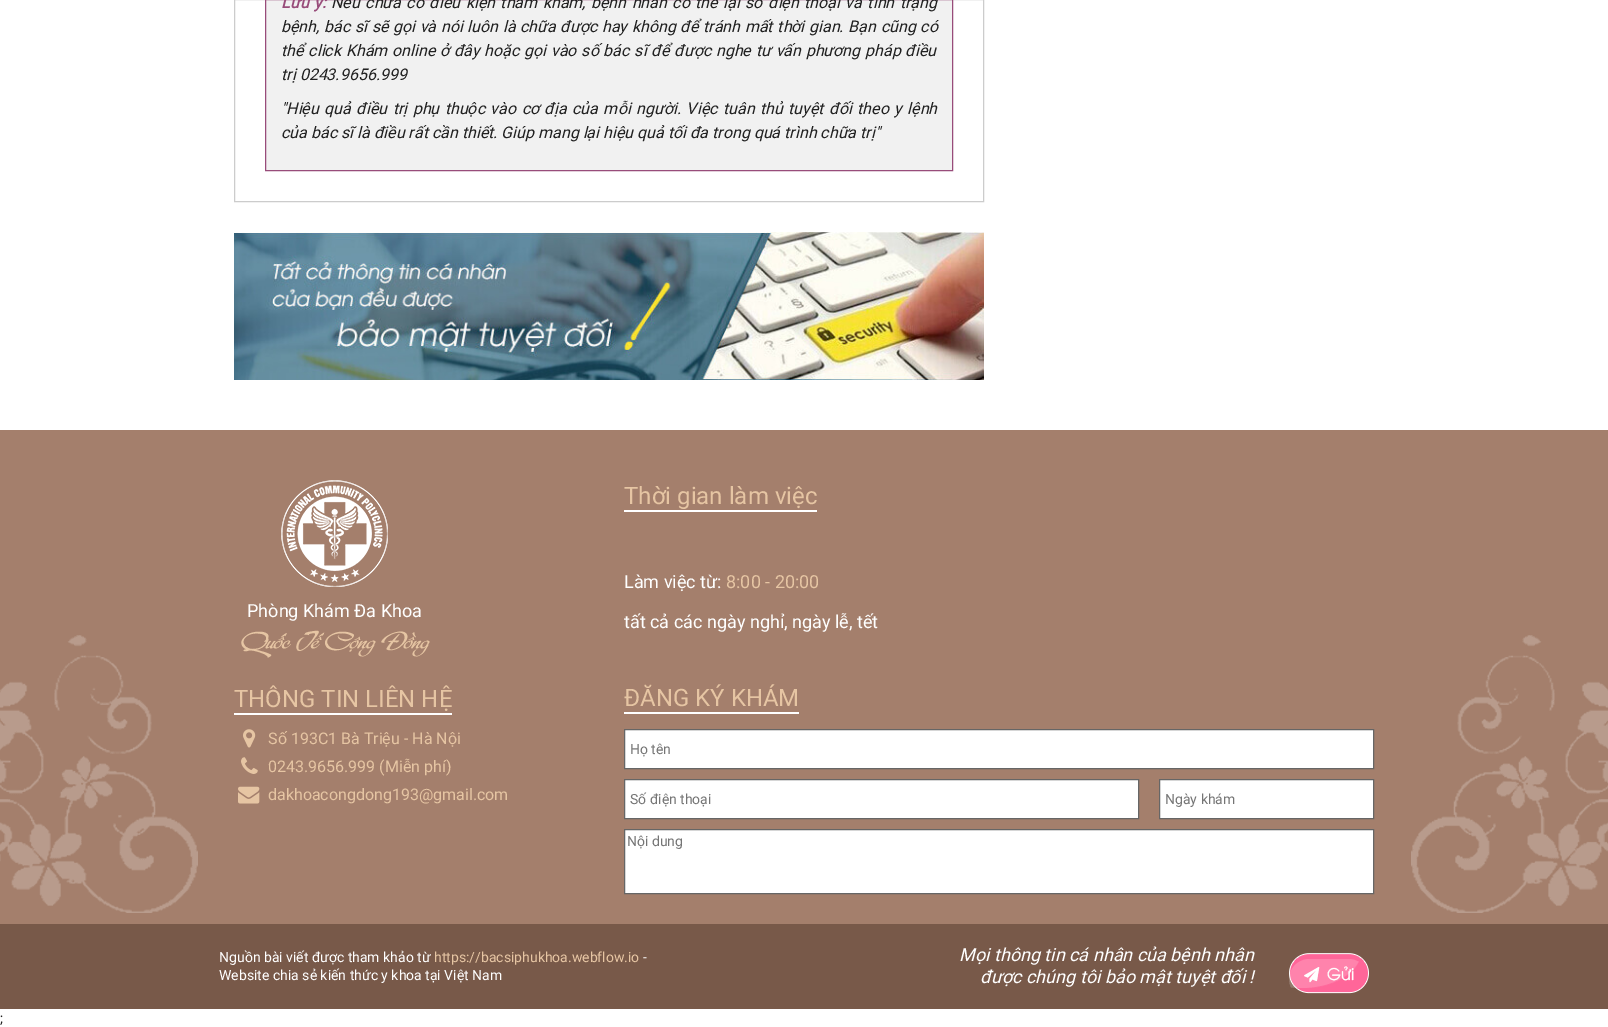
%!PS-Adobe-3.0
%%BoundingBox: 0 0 1608 1027
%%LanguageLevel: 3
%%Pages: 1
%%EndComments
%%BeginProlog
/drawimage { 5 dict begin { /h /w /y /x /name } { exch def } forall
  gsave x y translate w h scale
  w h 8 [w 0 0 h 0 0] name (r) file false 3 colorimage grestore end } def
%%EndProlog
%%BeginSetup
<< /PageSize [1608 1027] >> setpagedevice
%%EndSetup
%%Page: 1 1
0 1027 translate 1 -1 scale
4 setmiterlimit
1 setgray
0 0 1608 1027 rectfill
0.8 setgray
234.5 -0.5 749 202 rectstroke
0.945 setgray
newpath 265.5 -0.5 moveto 952.5 -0.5 lineto 952.5 170.5 lineto 265.5 170.5 lineto closepath gsave fill grestore
0.596 0.298 0.478 setrgbcolor
stroke
(images/1.raw) 234 232 750 148 drawimage
0.643 0.498 0.424 setrgbcolor
0 430 1608 494 rectfill
(images/2.raw) 0 635 1608 278 drawimage
(images/3.raw) 281 480 107 107 drawimage
1 setgray
234 713 218 2 rectfill
(images/4.raw) 243 729 13 19 drawimage
(images/5.raw) 241 757 17 17 drawimage
(images/6.raw) 238 786 22 18 drawimage
624 510 193 2 rectfill
624 712 175 2 rectfill
newpath 624.5 729.5 moveto 1373.5 729.5 lineto 1373.5 768.5 lineto 624.5 768.5 lineto closepath gsave fill grestore
0.4 setgray
stroke
1 setgray
newpath 624.5 779.5 moveto 1138.5 779.5 lineto 1138.5 818.5 lineto 624.5 818.5 lineto closepath gsave fill grestore
0.4 setgray
stroke
1 setgray
newpath 1159.5 779.5 moveto 1373.5 779.5 lineto 1373.5 818.5 lineto 1159.5 818.5 lineto closepath gsave fill grestore
0.4 setgray
stroke
1 setgray
newpath 624.5 829.5 moveto 1373.5 829.5 lineto 1373.5 893.5 lineto 624.5 893.5 lineto closepath gsave fill grestore
0.4 setgray
stroke
0.471 0.349 0.286 setrgbcolor
0 924 1608 85 rectfill
(images/7.raw) 1289 953 80 41 drawimage
/Roboto-BoldItalic [16 0 0 -16 0 0] selectfont
0.596 0.298 0.478 setrgbcolor
281 8 moveto 2 0 32 (Lưu ý:) widthshow
/Roboto-Italic [16 0 0 -16 0 0] selectfont
0.129 setgray
331 8 moveto 1.5 0 32 (Nếu chưa có điều kiện thăm khám, bệnh nhân có thể lại số điện thoại và tình trạng) widthshow
281 32 moveto 0.7 0 32 (bệnh, bác sĩ sẽ gọi và nói luôn là chữa được hay không để tránh mất thời gian. Bạn cũng có) widthshow
281 56 moveto 0.8 0 32 (thể click Khám online ở đây hoặc gọi vào số bác sĩ để được nghe tư vấn phương pháp điều) widthshow
281 80 moveto (trị 0243.9656.999) show
281 114 moveto 1.5 0 32 ("Hiệu quả điều trị phụ thuộc vào cơ địa của mỗi người. Việc tuân thủ tuyệt đối theo y lệnh) widthshow
281 138 moveto (của bác sĩ là điều rất cần thiết. Giúp mang lại hiệu quả tối đa trong quá trình chữa trị") show
/Roboto-Regular [18 0 0 -18 0 0] selectfont
1 setgray
247 617 moveto (Phòng Khám Đa Khoa) show
/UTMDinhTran-Regular [32 0 0 -32 0 0] selectfont
0.902 0.773 0.639 setrgbcolor
239 650 moveto (Quốc Tế Cộng Đồng) show
/Roboto-Regular [24 0 0 -24 0 0] selectfont
234 707 moveto (THÔNG TIN LIÊN HỆ) show
/Roboto-Regular [16 0 0 -16 0 0] selectfont
268 744 moveto (Số 193C1 Bà Triệu - Hà Nội) show
268 772 moveto (0243.9656.999 \(Miễn phí\)) show
268 800 moveto (dakhoacongdong193@gmail.com) show
/Roboto-Regular [24 0 0 -24 0 0] selectfont
624 504 moveto (Thời gian làm việc) show
/Roboto-Regular [18 0 0 -18 0 0] selectfont
1 setgray
624 588 moveto (Làm việc từ:) show
0.902 0.773 0.639 setrgbcolor
726 588 moveto (8:00 - 20:00) show
1 setgray
624 628 moveto (tất cả các ngày nghỉ, ngày lễ, tết) show
/Roboto-Regular [24 0 0 -24 0 0] selectfont
0.902 0.773 0.639 setrgbcolor
624 706 moveto (ĐĂNG KÝ KHÁM) show
/Roboto-Regular [14 0 0 -14 0 0] selectfont
0.459 setgray
630 754 moveto (Họ tên) show
630 804 moveto (Số điện thoại) show
1165 804 moveto (Ngày khám) show
627 846 moveto (Nội dung) show
1 setgray
219 962 moveto (Nguồn bài viết được tham khảo từ) show
0.902 0.773 0.639 setrgbcolor
434 962 moveto (https://bacsiphukhoa.webflow.io) show
1 setgray
643 962 moveto (-) show
219 980 moveto (Website chia sẻ kiến thức y khoa tại Việt Nam) show
/Roboto-Italic [18 0 0 -18 0 0] selectfont
959 961 moveto (Mọi thông tin cá nhân của bệnh nhân) show
980 983 moveto (được chúng tôi bảo mật tuyệt đối !) show
/Roboto-Regular [14 0 0 -14 0 0] selectfont
0.129 setgray
0 1023 moveto (;) show
showpage
%%EOF
